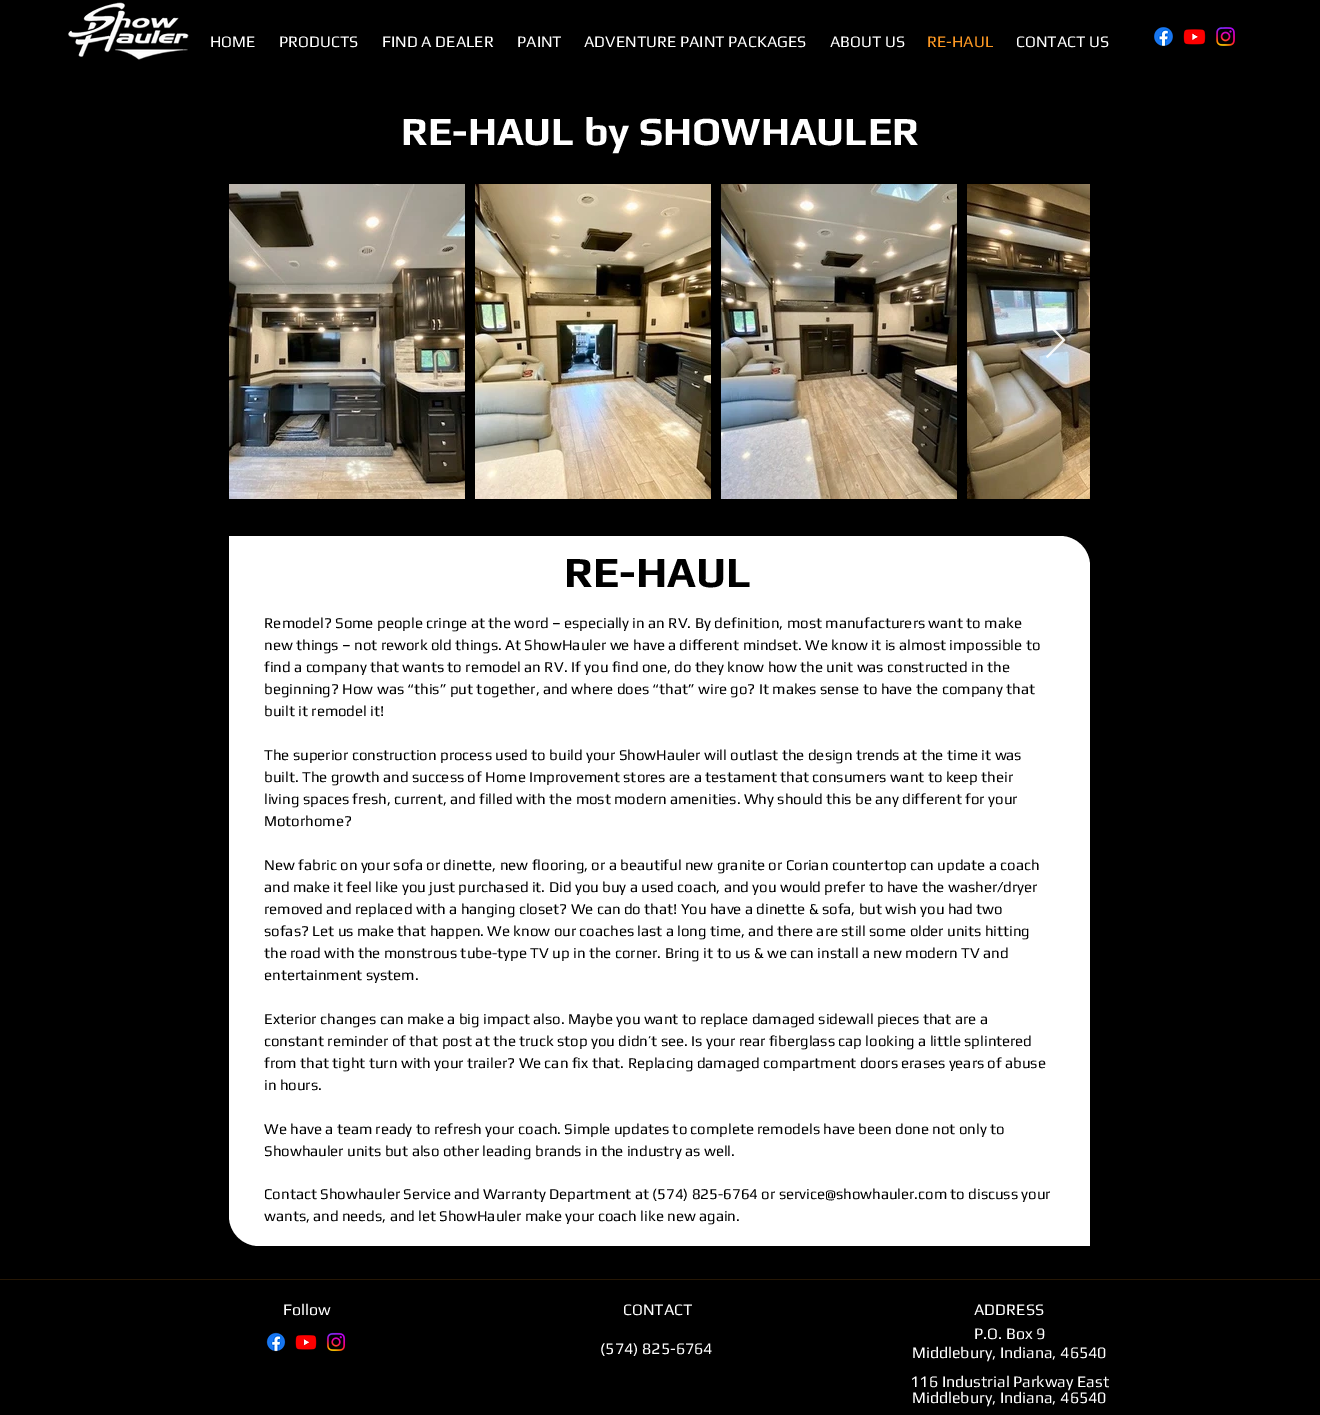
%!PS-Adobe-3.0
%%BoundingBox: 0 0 1320 1415
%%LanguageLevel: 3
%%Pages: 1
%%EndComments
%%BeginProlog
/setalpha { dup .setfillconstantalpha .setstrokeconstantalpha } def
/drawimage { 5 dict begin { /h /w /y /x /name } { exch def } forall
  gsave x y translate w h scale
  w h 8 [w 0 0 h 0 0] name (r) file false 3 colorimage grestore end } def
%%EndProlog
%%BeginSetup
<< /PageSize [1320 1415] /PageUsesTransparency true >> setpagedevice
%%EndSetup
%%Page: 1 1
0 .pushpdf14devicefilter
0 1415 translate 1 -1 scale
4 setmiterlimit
0 setgray
0 0 1320 1415 rectfill
(images/1.raw) 68 2 121 58 drawimage
(images/2.raw) 1154 27 19 19 drawimage
(images/3.raw) 1183 29 23 16 drawimage
(images/4.raw) 1216 27 19 19 drawimage
(images/5.raw) 229 184 236 315 drawimage
(images/6.raw) 475 184 236 315 drawimage
(images/7.raw) 721 184 236 315 drawimage
(images/8.raw) 967 184 123 315 drawimage
0.9 setalpha
1 setgray
newpath 1046 323.5 moveto 1047.5 322 lineto 1065.5 340 lineto 1047.5 358 lineto 1046 356.5 lineto 1062.5 340 lineto closepath fill
1 setalpha
newpath 229 536 moveto 1060 536 lineto 1076.5 536 1090 549.5 1090 566 curveto 1090 1246 lineto 259 1246 lineto 242.5 1246 229 1232.5 229 1216 curveto closepath fill
0.149 0.09 0.02 setrgbcolor
0 1279 1320 1 rectfill
(images/9.raw) 266 1332 20 20 drawimage
(images/10.raw) 295 1335 22 15 drawimage
(images/11.raw) 326 1332 20 20 drawimage
/Play-Regular [16 0 0 -16 0 0] selectfont
1 setgray
210 47 moveto (HOME) show
279 47 moveto (PRODUCTS) show
382 47 moveto (FIND A DEALER) show
517 47 moveto (PAINT) show
584 47 moveto (ADVENTURE PAINT PACKAGES) show
830 47 moveto (ABOUT US) show
0.988 0.596 0.137 setrgbcolor
927 47 moveto (RE-HAUL) show
1 setgray
1016 47 moveto (CONTACT US) show
/Play-Bold [40 0 0 -40 0 0] selectfont
401 145 moveto (RE-HAUL by SHOWHAULER) show
/Play-Bold [43 0 0 -43 0 0] selectfont
0 setgray
564 587 moveto (RE-HAUL) show
/Play-Regular [15 0 0 -15 0 0] selectfont
264 628 moveto (Remodel? Some people cringe at the word – especially in an RV. By definition, most manufacturers want to make) show
264 650 moveto (new things – not rework old things. At ShowHauler we have a different mindset. We know it is almost impossible to) show
264 672 moveto (find a company that wants to remodel an RV. If you find one, do they know how the unit was constructed in the) show
264 694 moveto (beginning? How was “this” put together, and where does “that” wire go? It makes sense to have the company that) show
264 716 moveto (built it remodel it!) show
264 760 moveto (The superior construction process used to build your ShowHauler will outlast the design trends at the time it was) show
264 782 moveto (built. The growth and success of Home Improvement stores are a testament that consumers want to keep their) show
264 804 moveto (living spaces fresh, current, and filled with the most modern amenities. Why should this be any different for your) show
264 826 moveto (Motorhome?) show
264 870 moveto (New fabric on your sofa or dinette, new flooring, or a beautiful new granite or Corian countertop can update a coach) show
264 892 moveto (and make it feel like you just purchased it. Did you buy a used coach, and you would prefer to have the washer/dryer) show
264 914 moveto (removed and replaced with a hanging closet? We can do that! You have a dinette & sofa, but wish you had two) show
264 936 moveto (sofas? Let us make that happen. We know our coaches last a long time, and there are still some older units hitting) show
264 958 moveto (the road with the monstrous tube-type TV up in the corner. Bring it to us & we can install a new modern TV and) show
264 980 moveto (entertainment system.) show
264 1024 moveto (Exterior changes can make a big impact also. Maybe you want to replace damaged sidewall pieces that are a) show
264 1046 moveto (constant reminder of that post at the truck stop you didn’t see. Is your rear fiberglass cap looking a little splintered) show
264 1068 moveto (from that tight turn with your trailer? We can fix that. Replacing damaged compartment doors erases years of abuse) show
264 1090 moveto (in hours.) show
264 1134 moveto (We have a team ready to refresh your coach. Simple updates to complete remodels have been done not only to) show
264 1156 moveto (Showhauler units but also other leading brands in the industry as well.) show
264 1199 moveto (Contact Showhauler Service and Warranty Department at \(574\) 825-6764 or service@showhauler.com to discuss your) show
264 1221 moveto (wants, and needs, and let ShowHauler make your coach like new again.) show
/Play-Regular [16 0 0 -16 0 0] selectfont
1 setgray
283 1315 moveto (Follow) show
623 1315 moveto (CONTACT) show
974 1315 moveto (ADDRESS) show
600 1354 moveto (\(574\) 825-6764) show
974 1339 moveto (P.O. Box 9) show
912 1358 moveto (Middlebury, Indiana, 46540) show
910 1387 moveto (116 Industrial Parkway East) show
912 1403 moveto (Middlebury, Indiana, 46540) show
.poppdf14devicefilter showpage
%%EOF
